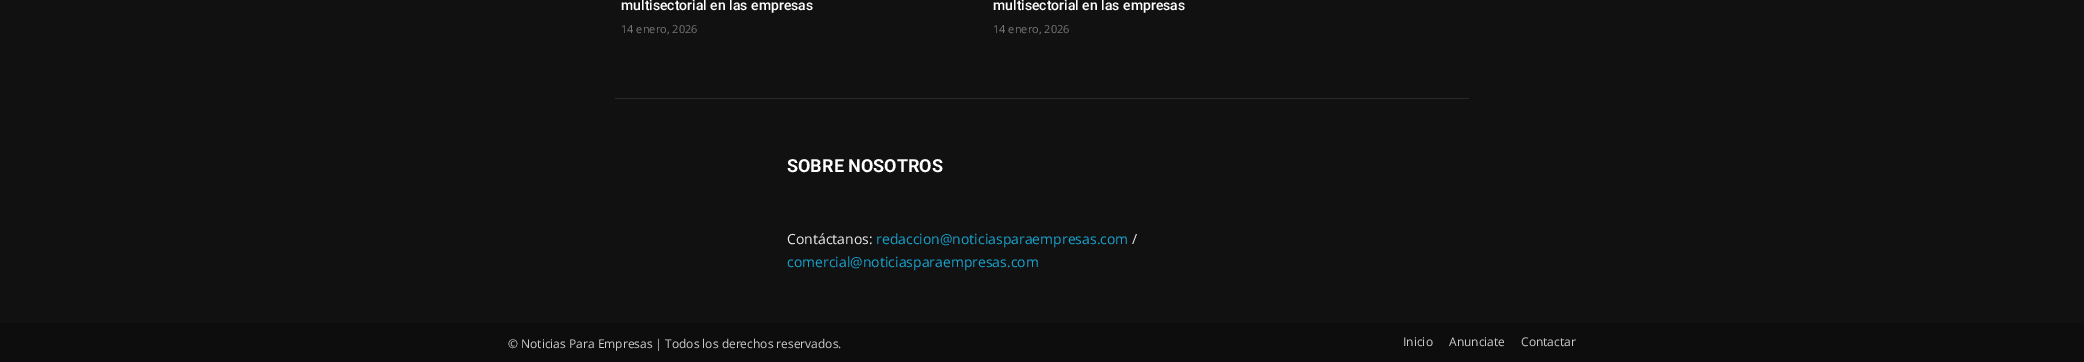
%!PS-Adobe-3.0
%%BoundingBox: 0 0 2084 362
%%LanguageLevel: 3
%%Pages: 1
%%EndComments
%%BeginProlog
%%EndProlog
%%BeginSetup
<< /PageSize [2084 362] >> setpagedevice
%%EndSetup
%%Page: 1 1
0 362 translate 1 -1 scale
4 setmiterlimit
0.067 setgray
0 0 2084 362 rectfill
0.161 setgray
615 98 854 1 rectfill
0.051 setgray
0 323 2084 39 rectfill
/Roboto-Medium [14 0 0 -14 0 0] selectfont
1 setgray
621 10 moveto (multisectorial en las empresas) show
/OpenSans-Regular [11 0 0 -11 0 0] selectfont
0.463 setgray
621 33 moveto (14 enero, 2026) show
/Roboto-Medium [14 0 0 -14 0 0] selectfont
1 setgray
993 10 moveto (multisectorial en las empresas) show
/OpenSans-Regular [11 0 0 -11 0 0] selectfont
0.463 setgray
993 33 moveto (14 enero, 2026) show
/Roboto-Bold [18 0 0 -18 0 0] selectfont
1 setgray
787 172 moveto (SOBRE NOSOTROS) show
/OpenSans-Regular [14 0 0 -14 0 0] selectfont
0.918 setgray
787 244 moveto (Contáctanos:) show
0.102 0.643 0.808 setrgbcolor
876 244 moveto (redaccion@noticiasparaempresas.com) show
0.918 setgray
1132 244 moveto (/) show
0.102 0.643 0.808 setrgbcolor
787 267 moveto (comercial@noticiasparaempresas.com) show
/OpenSans-Regular [12 0 0 -12 0 0] selectfont
0.8 setgray
508 348 moveto (© Noticias Para Empresas | Todos los derechos reservados.) show
1403 346 moveto (Inicio) show
1449 346 moveto (Anunciate) show
1521 346 moveto (Contactar) show
showpage
%%EOF
